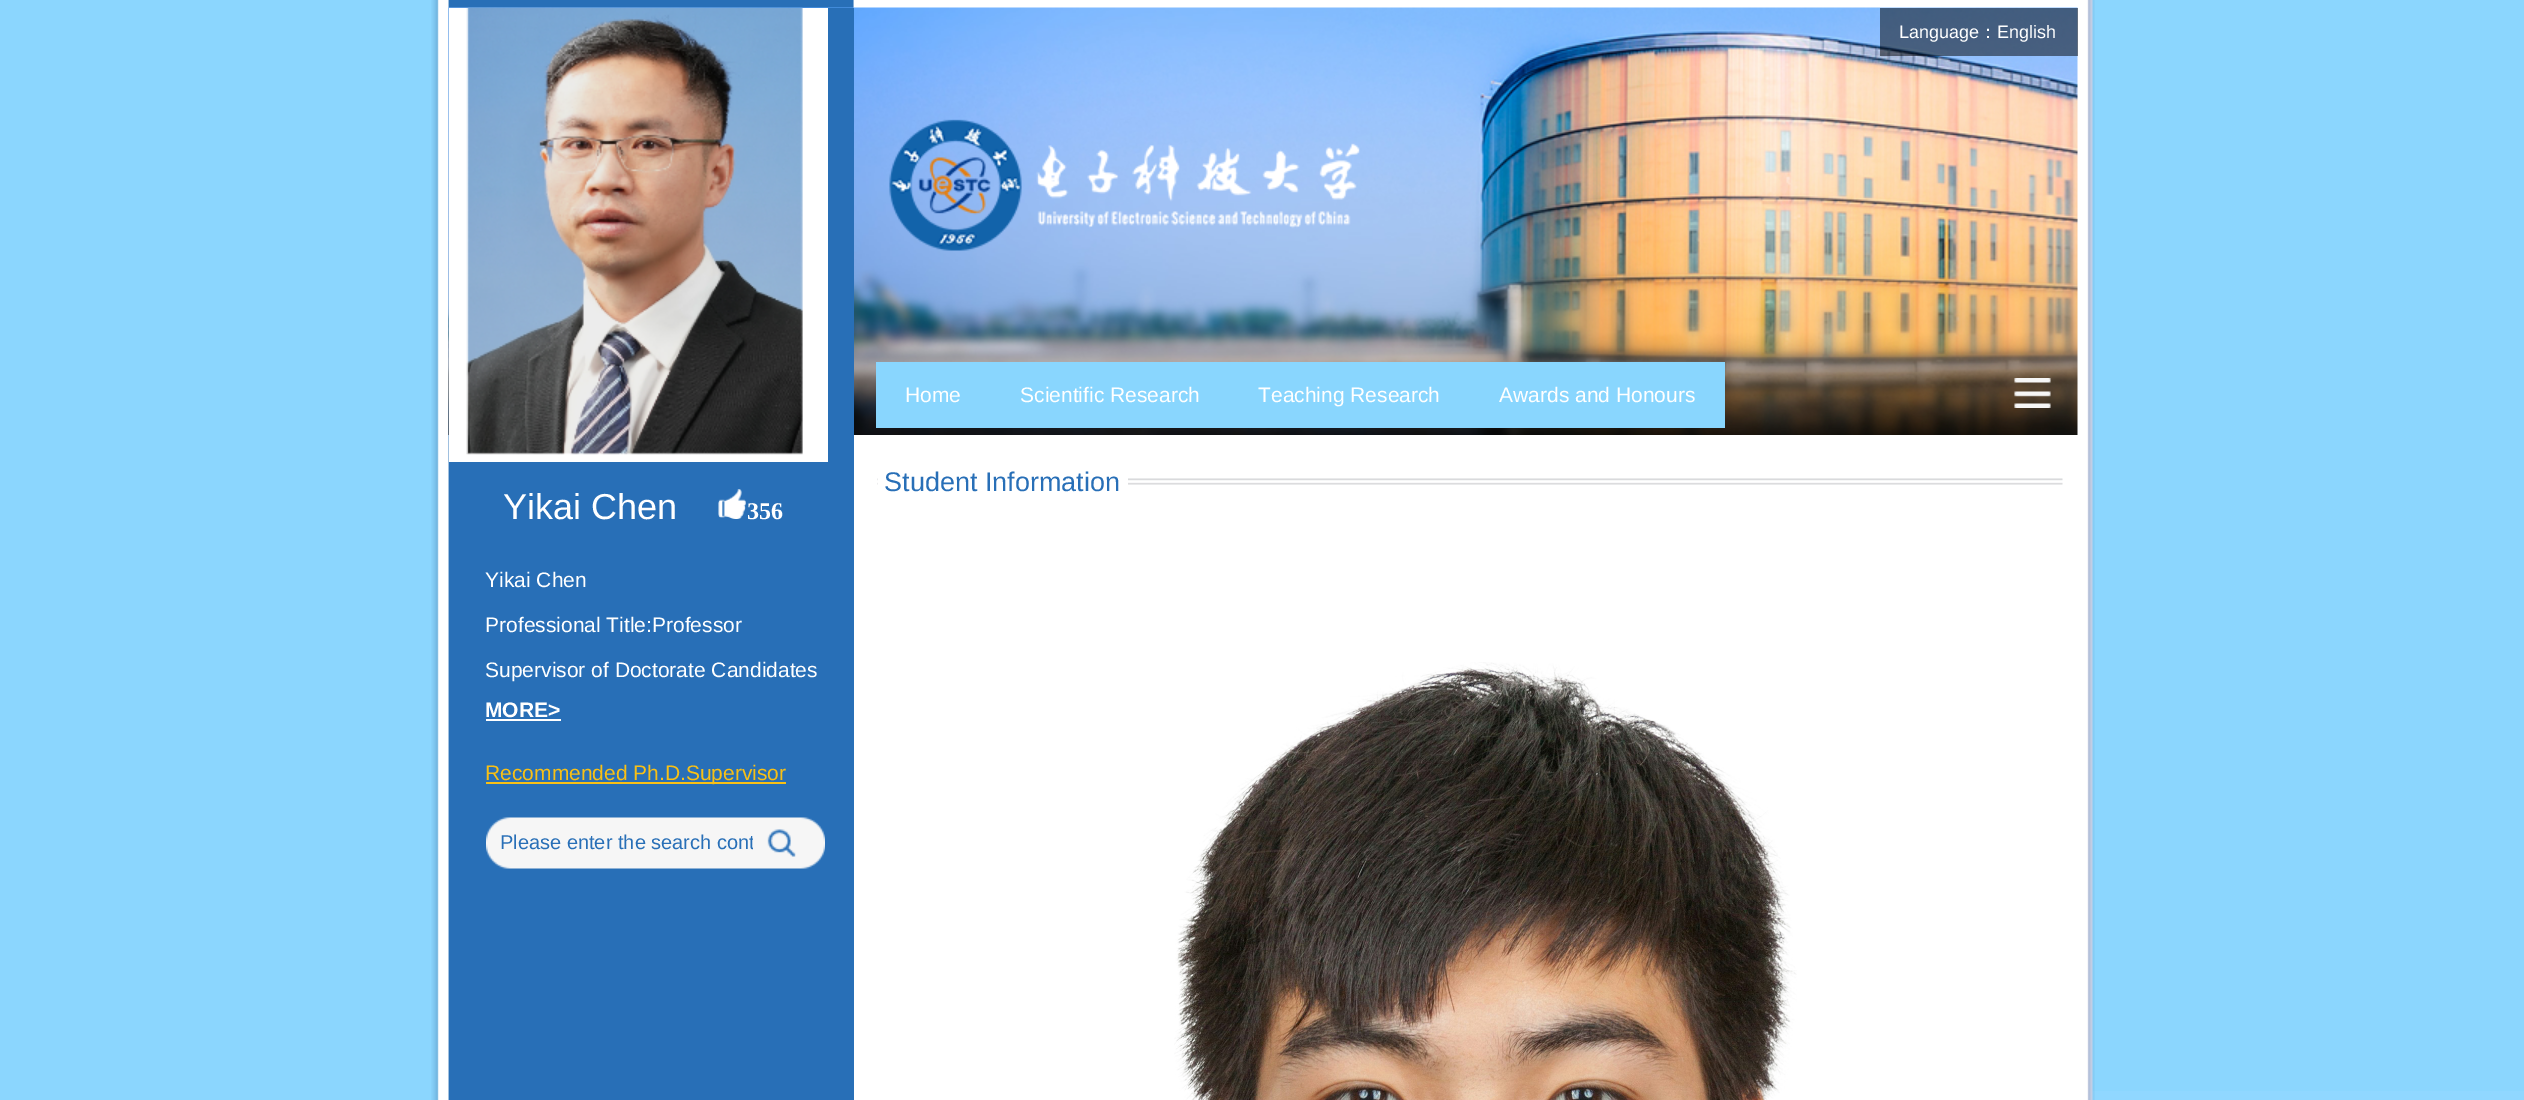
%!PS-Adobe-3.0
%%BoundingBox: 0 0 2524 1100
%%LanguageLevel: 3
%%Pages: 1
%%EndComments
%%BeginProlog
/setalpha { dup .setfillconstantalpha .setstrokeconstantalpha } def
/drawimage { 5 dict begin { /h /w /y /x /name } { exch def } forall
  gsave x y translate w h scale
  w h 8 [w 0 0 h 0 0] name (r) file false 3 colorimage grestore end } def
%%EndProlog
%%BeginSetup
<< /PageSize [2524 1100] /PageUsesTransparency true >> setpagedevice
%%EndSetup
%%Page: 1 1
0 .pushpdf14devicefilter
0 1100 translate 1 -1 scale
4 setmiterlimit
0.545 0.839 0.996 setrgbcolor
0 0 2524 1100 rectfill
0.565 0.843 1 setrgbcolor
2092 1091 432 9 rectfill
(images/1.raw) 431 0 1664 1100 drawimage
(images/2.raw) 448 7 1630 428 drawimage
0.5 setalpha
0 setgray
1880 8 198 48 rectfill
1 setalpha
(images/3.raw) 889 119 471 132 drawimage
0.537 0.839 0.996 setrgbcolor
876 362 849 66 rectfill
(images/4.raw) 2014 378 37 30 drawimage
(images/5.raw) 877 478 1186 7 drawimage
1 setgray
878 478 250 7 rectfill
(images/6.raw) 1174 662 623 438 drawimage
0.157 0.435 0.718 setrgbcolor
449 8 405 1092 rectfill
1 setgray
449 8 379 454 rectfill
(images/7.raw) 466 7 337 448 drawimage
(images/8.raw) 718 489 28 30 drawimage
486 719 75 2 rectfill
0.973 0.753 0.082 setrgbcolor
486 782 300 2 rectfill
(images/9.raw) 486 817 339 52 drawimage
(images/10.raw) 767 829 29 28 drawimage
/LiberationSans-Regular [18 0 0 -18 0 0] selectfont
1 setgray
1899 38 moveto (Language) show
/WenQuanYiZenHei-Medium [18 0 0 -18 0 0] selectfont
1979 38 moveto (：) show
/LiberationSans-Regular [18 0 0 -18 0 0] selectfont
1997 38 moveto (English) show
/LiberationSans-Regular [21 0 0 -21 0 0] selectfont
905 402 moveto (Home) show
1020 402 moveto (Scientific Research) show
1258 402 moveto (Teaching Research) show
1499 402 moveto (Awards and Honours) show
/LiberationSans-Regular [27 0 0 -27 0 0] selectfont
0.157 0.435 0.718 setrgbcolor
884 491 moveto (Student Information) show
/LiberationSans-Regular [36 0 0 -36 0 0] selectfont
1 setgray
503 519 moveto (Yikai Chen) show
/LiberationSerif-Bold [24 0 0 -24 0 0] selectfont
747 519 moveto (356) show
/LiberationSans-Regular [21 0 0 -21 0 0] selectfont
485 587 moveto (Yikai Chen) show
485 632 moveto (Professional Title:Professor) show
485 677 moveto (Supervisor of Doctorate Candidates) show
/LiberationSans-Bold [21 0 0 -21 0 0] selectfont
485 717 moveto (MORE>) show
/LiberationSans-Regular [21 0 0 -21 0 0] selectfont
0.973 0.753 0.082 setrgbcolor
485 780 moveto (Recommended Ph.D.Supervisor) show
gsave
501 831 252 24 rectclip
/LiberationSans-Regular [20 0 0 -20 0 0] selectfont
0.157 0.435 0.718 setrgbcolor
500 849 moveto (Please enter the search cont) show
grestore
.poppdf14devicefilter showpage
%%EOF
